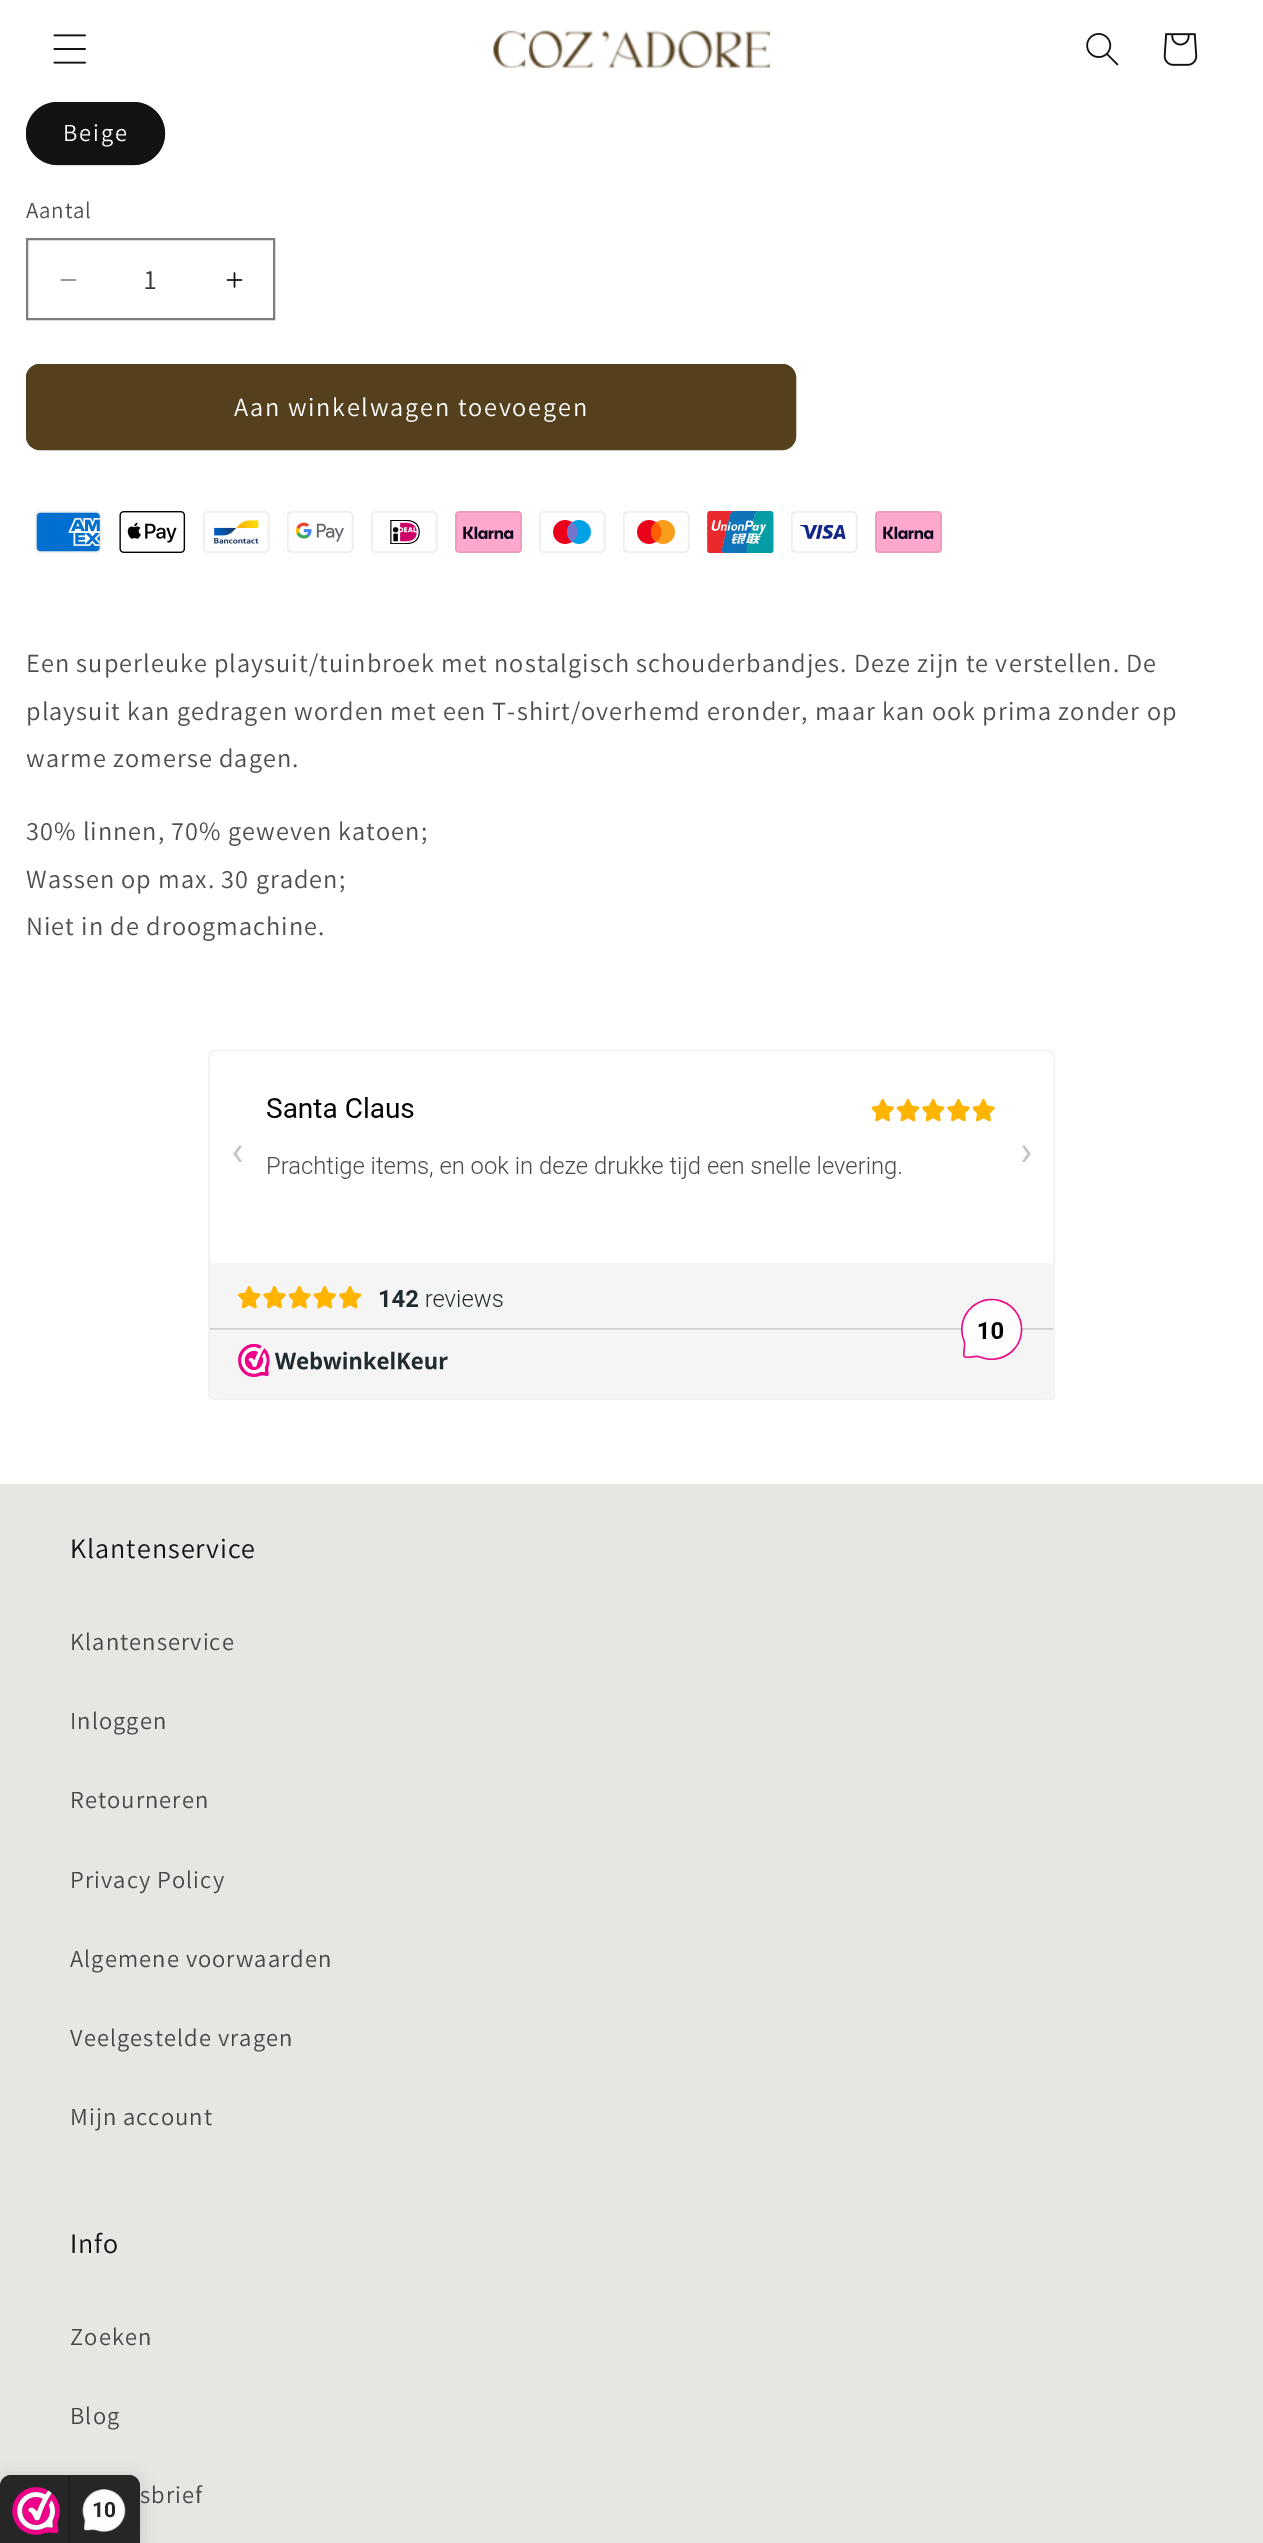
%!PS-Adobe-3.0
%%BoundingBox: 0 0 1263 2543
%%LanguageLevel: 3
%%Pages: 1
%%EndComments
%%BeginProlog
/setalpha { dup .setfillconstantalpha .setstrokeconstantalpha } def
/rrect { 5 dict begin { /r /h /w /y /x } { exch def } forall
  x r add y moveto x w add y 2 copy h add r arct x w add y h add x 1 index r arct
  x y h add x y r arct x y 2 copy exch w add exch r arct closepath end } def
/softshadow { 12 dict begin { /a /b /q /h /w /y /x } { exch def } forall gsave /was 0 def
  9 -2 -9 { dup b mul 4 div /e exch def 1 sub .425 mul 2.718 exch exp 1 add a .99 .min exch div /now exch def
    1 1 now sub 1 was sub div sub setalpha /was now def
    w h .min e 2 mul add 0 gt { x e sub y e sub w e 2 mul add h e 2 mul add
      q e add b .6 mul add w h .min 2 div e add .min 0 .max rrect fill } if } for grestore end } def
/drawimage { 5 dict begin { /h /w /y /x /name } { exch def } forall
  gsave x y translate w h scale
  w h 8 [w 0 0 h 0 0] name (r) file false 3 colorimage grestore end } def
%%EndProlog
%%BeginSetup
<< /PageSize [1263 2543] /PageUsesTransparency true >> setpagedevice
%%EndSetup
%%Page: 1 1
0 .pushpdf14devicefilter
0 2543 translate 1 -1 scale
4 setmiterlimit
1 setgray
0 0 1263 2543 rectfill
(images/1.raw) 53 34 33 30 drawimage
(images/2.raw) 493 30 277 38 drawimage
(images/3.raw) 1086 33 33 33 drawimage
(images/4.raw) 1163 33 35 33 drawimage
0.071 setgray
26 102 139 63 31.5 rrect fill
0.55 setalpha
2 setlinewidth
27 103 137 61 30.5 rrect stroke
1 setalpha
(images/5.raw) 60 279 16 2 drawimage
(images/6.raw) 226 272 17 16 drawimage
0.49 setgray
27 239 247 80 rectstroke
0.329 0.251 0.114 setrgbcolor
26 364 770 86 14 rrect fill
4 setlinewidth
28 366 766 82 12 rrect stroke
(images/7.raw) 35 511 67 42 drawimage
(images/8.raw) 119 511 67 42 drawimage
(images/9.raw) 203 511 67 42 drawimage
(images/10.raw) 287 511 67 42 drawimage
(images/11.raw) 371 511 67 42 drawimage
(images/12.raw) 455 511 67 42 drawimage
(images/13.raw) 539 511 67 42 drawimage
(images/14.raw) 623 511 67 42 drawimage
(images/15.raw) 707 511 67 42 drawimage
(images/16.raw) 791 511 67 42 drawimage
(images/12.raw) 875 511 67 42 drawimage
(images/17.raw) 208 1050 848 350 drawimage
0.91 0.902 0.89 setrgbcolor
0 1484 1263 1059 rectfill
0 setgray
0 2478 140 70 11 9 0.15 softshadow
0.153 0.149 0.149 setrgbcolor
newpath 11 2475 moveto 129 2475 lineto 135 2475 140 2480 140 2486 curveto 140 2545 lineto 0 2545 lineto 0 2486 lineto 0 2480 5 2475 11 2475 curveto closepath fill
(images/18.raw) 12 2487 48 48 drawimage
0.129 0.125 0.125 setrgbcolor
68 2476 2 67 rectfill
(images/19.raw) 82 2489 44 44 drawimage
/Assistant-Regular [24.5 0 0 -24.5 0 0] selectfont
1 setgray
63 141 moveto 1.75 0 (Beige) ashow
/Assistant-Regular [23 0 0 -23 0 0] selectfont
0.302 setgray
26 218 moveto 0.75 0 (Aantal) ashow
/Assistant-Regular [28 0 0 -28 0 0] selectfont
0.212 setgray
144 289 moveto (1) show
/Assistant-Regular [26.25 0 0 -26.25 0 0] selectfont
1 setgray
234 416 moveto 1.75 0 (Aan winkelwagen toevoegen) ashow
0.302 setgray
26 672 moveto 1.05 0 (Een superleuke playsuit/tuinbroek met nostalgisch schouderbandjes. Deze zijn te verstellen. De) ashow
26 720 moveto 1.05 0 (playsuit kan gedragen worden met een T-shirt/overhemd eronder, maar kan ook prima zonder op) ashow
26 767 moveto 1.05 0 (warme zomerse dagen.) ashow
26 840 moveto 1.05 0 (30% linnen, 70% geweven katoen;) ashow
26 888 moveto 1.05 0 (Wassen op max. 30 graden;) ashow
26 935 moveto 1.05 0 (Niet in de droogmachine.) ashow
/Assistant-Regular [28 0 0 -28 0 0] selectfont
0.071 setgray
70 1558 moveto 1.05 0 (Klantenservice) ashow
/Assistant-Regular [24.5 0 0 -24.5 0 0] selectfont
0.282 0.278 0.275 setrgbcolor
70 1650 moveto 1.05 0 (Klantenservice) ashow
70 1729 moveto 1.05 0 (Inloggen) ashow
70 1808 moveto 1.05 0 (Retourneren) ashow
70 1888 moveto 1.05 0 (Privacy Policy) ashow
70 1967 moveto 1.05 0 (Algemene voorwaarden) ashow
70 2046 moveto 1.05 0 (Veelgestelde vragen) ashow
70 2125 moveto 1.05 0 (Mijn account) ashow
/Assistant-Regular [28 0 0 -28 0 0] selectfont
0.071 setgray
70 2253 moveto 1.05 0 (Info) ashow
/Assistant-Regular [24.5 0 0 -24.5 0 0] selectfont
0.282 0.278 0.275 setrgbcolor
70 2345 moveto 1.05 0 (Zoeken) ashow
70 2424 moveto 1.05 0 (Blog) ashow
140 2503 moveto 1.05 0 (sbrief) ashow
/Roboto-Bold [21 0 0 -21 0 0] selectfont
0.153 0.149 0.149 setrgbcolor
92 2517 moveto (10) show
.poppdf14devicefilter showpage
%%EOF
